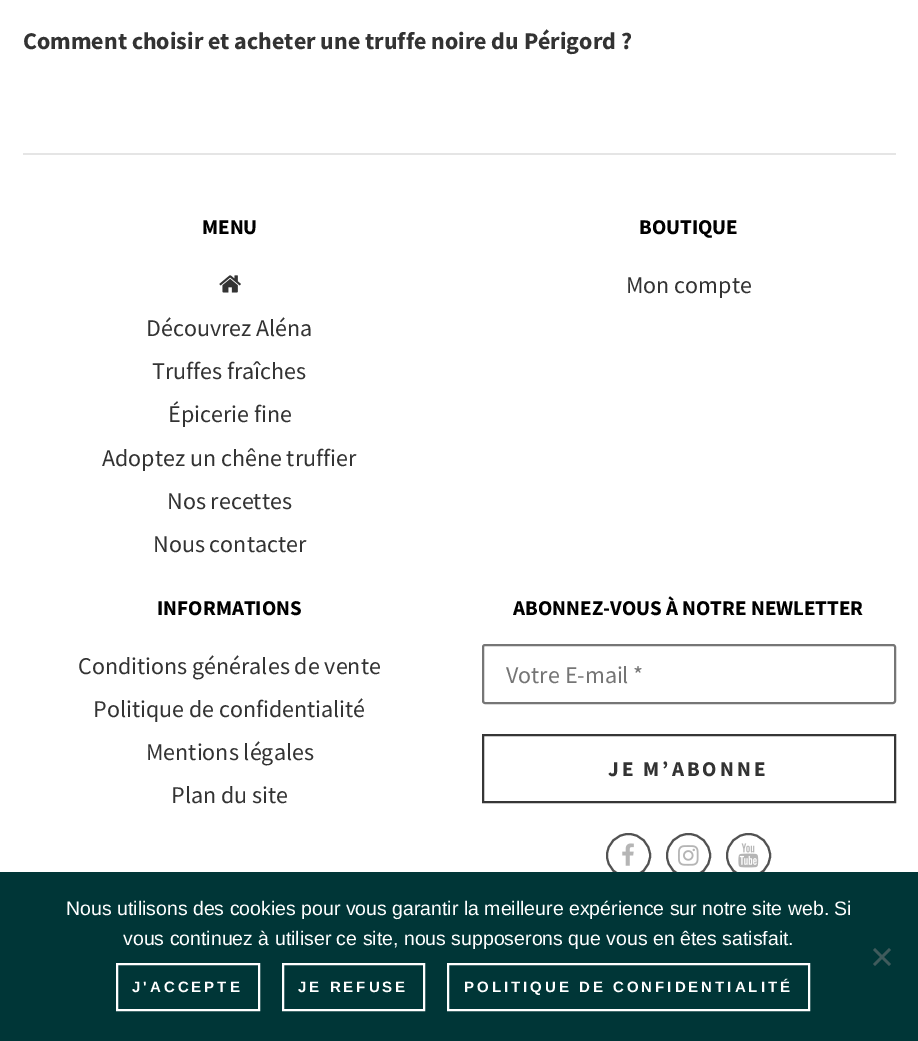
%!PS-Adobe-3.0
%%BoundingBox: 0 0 918 1041
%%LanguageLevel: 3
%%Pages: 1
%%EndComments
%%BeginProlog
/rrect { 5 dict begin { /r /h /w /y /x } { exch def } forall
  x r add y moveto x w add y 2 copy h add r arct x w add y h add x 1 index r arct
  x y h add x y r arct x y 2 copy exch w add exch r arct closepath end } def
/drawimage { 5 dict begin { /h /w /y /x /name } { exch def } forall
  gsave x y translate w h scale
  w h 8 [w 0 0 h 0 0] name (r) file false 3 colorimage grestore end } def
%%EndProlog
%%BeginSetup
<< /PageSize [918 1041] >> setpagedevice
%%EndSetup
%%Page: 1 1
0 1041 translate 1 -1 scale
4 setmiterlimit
1 setgray
0 0 918 1041 rectfill
0.898 setgray
23 153 873 2 rectfill
(images/1.raw) 219 275 22 18 drawimage
0.463 setgray
2 setlinewidth
483 645 412 58 2 rrect stroke
0.212 setgray
483 735 412 67 rectstroke
0.322 setgray
newpath 628.5 855.5 21.5 0 360 arc closepath stroke
(images/2.raw) 622 843 12 23 drawimage
newpath 688.5 855.5 21.5 0 360 arc closepath stroke
(images/3.raw) 678 845 21 21 drawimage
newpath 748.5 855.5 21.5 0 360 arc closepath stroke
(images/4.raw) 738 843 21 25 drawimage
0 0.212 0.216 setrgbcolor
0 872 918 169 rectfill
0.251 0.357 0.361 setrgbcolor
newpath 889 948 moveto 891 950 lineto 875 966 lineto 873 964 lineto closepath fill
newpath 873 950 moveto 875 948 lineto 891 964 lineto 889 966 lineto closepath fill
1 setgray
117 964 142 46 rectstroke
283 964 141 46 rectstroke
448 964 361 46 rectstroke
/SourceSansPro-Bold [24 0 0 -24 0 0] selectfont
0.2 setgray
23 49 moveto (Comment choisir et acheter une truffe noire du Périgord ?) show
/SourceSansPro-Bold [21 0 0 -21 0 0] selectfont
0 setgray
202 234 moveto (MENU) show
/SourceSansPro-Regular [24 0 0 -24 0 0] selectfont
0.2 setgray
146 336 moveto (Découvrez Aléna) show
152 379 moveto (Truffes fraîches) show
168 422 moveto (Épicerie fine) show
102 466 moveto (Adoptez un chêne truffier) show
167 509 moveto (Nos recettes) show
153 552 moveto (Nous contacter) show
/SourceSansPro-Bold [21 0 0 -21 0 0] selectfont
0 setgray
639 234 moveto (BOUTIQUE) show
/SourceSansPro-Regular [24 0 0 -24 0 0] selectfont
0.2 setgray
626 293 moveto (Mon compte) show
/SourceSansPro-Bold [21 0 0 -21 0 0] selectfont
0 setgray
157 615 moveto (INFORMATIONS) show
/SourceSansPro-Regular [24 0 0 -24 0 0] selectfont
0.2 setgray
78 674 moveto (Conditions générales de vente) show
93 717 moveto (Politique de confidentialité) show
146 760 moveto (Mentions légales) show
171 803 moveto (Plan du site) show
/SourceSansPro-Bold [21 0 0 -21 0 0] selectfont
0 setgray
513 615 moveto (ABONNEZ-VOUS À NOTRE NEWLETTER) show
/SourceSansPro-Regular [24 0 0 -24 0 0] selectfont
0.459 setgray
506 683 moveto (Votre E-mail *) show
/SourceSansPro-Bold [21 0 0 -21 0 0] selectfont
0.2 setgray
608 776 moveto 3 0 (JE M’ABONNE) ashow
/LiberationSans-Regular [19.5 0 0 -19.5 0 0] selectfont
1 setgray
66 915 moveto (Nous utilisons des cookies pour vous garantir la meilleure expérience sur notre site web. Si) show
123 945 moveto (vous continuez à utiliser ce site, nous supposerons que vous en êtes satisfait.) show
/LiberationSans-Bold [15 0 0 -15 0 0] selectfont
132 992 moveto 3 0 (J'ACCEPTE) ashow
298 992 moveto 3 0 (JE REFUSE) ashow
464 992 moveto 3 0 (POLITIQUE DE CONFIDENTIALITÉ) ashow
showpage
%%EOF
